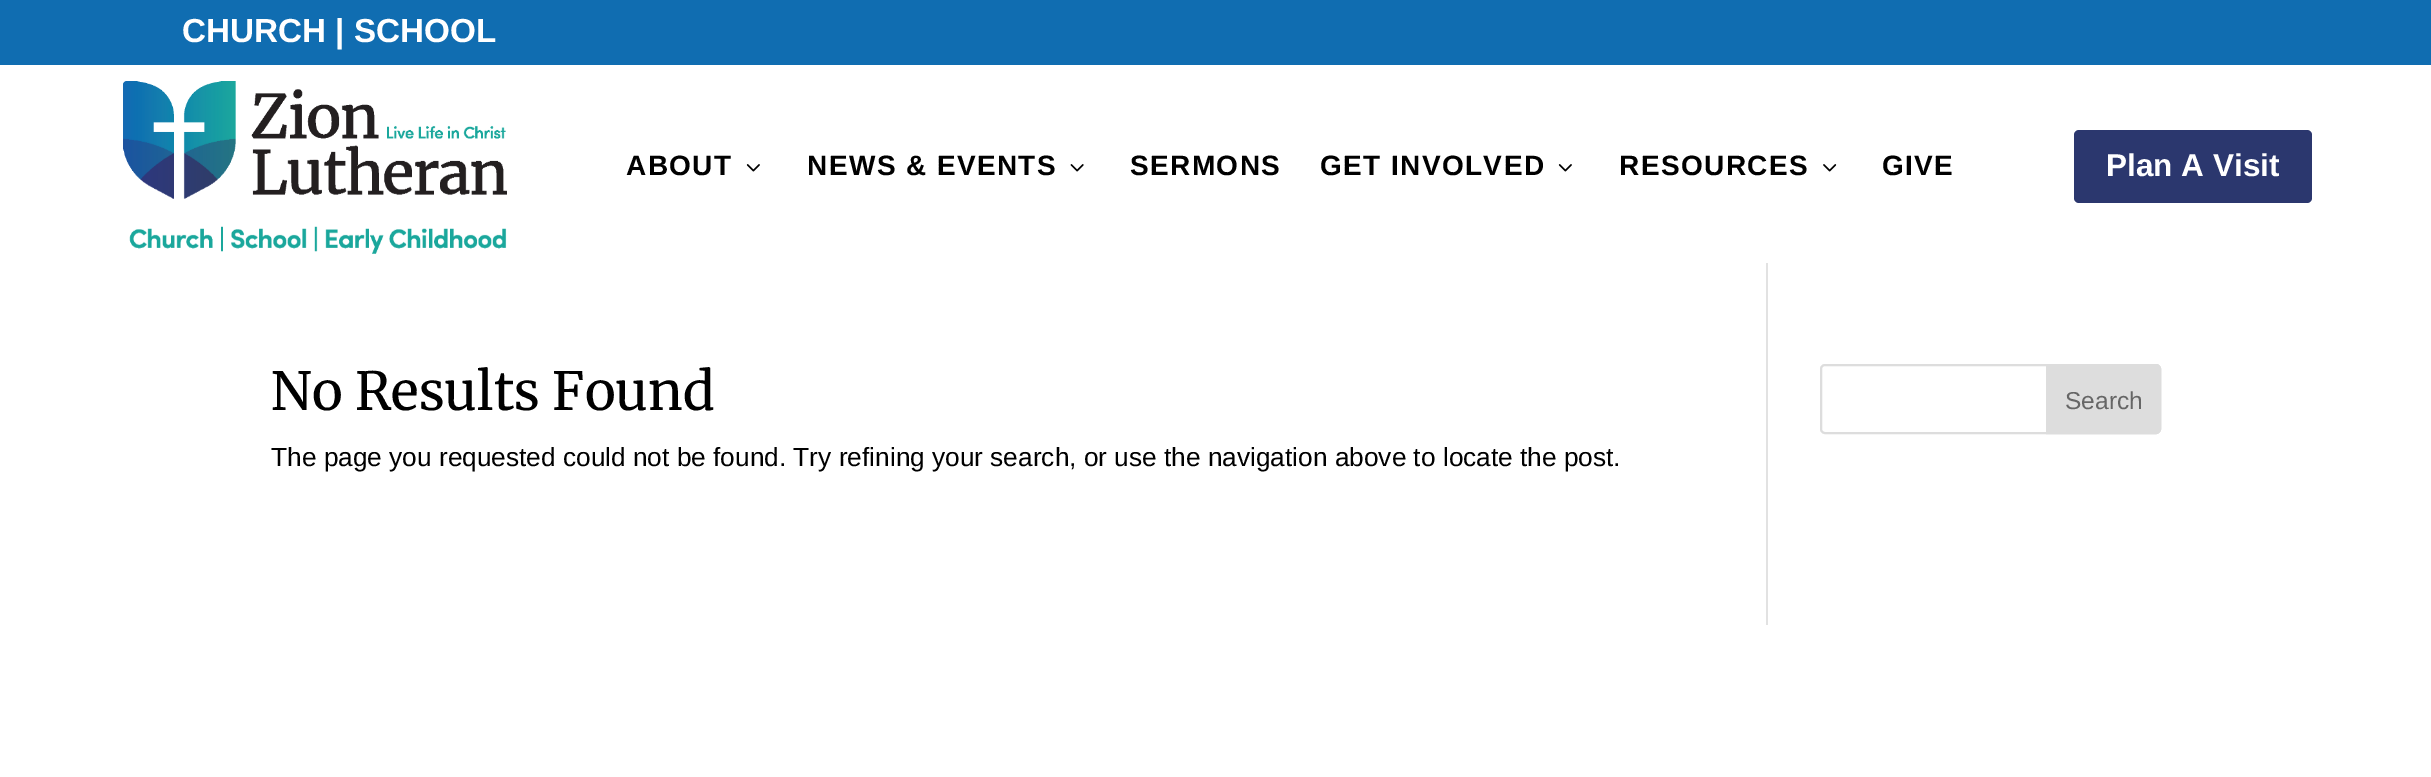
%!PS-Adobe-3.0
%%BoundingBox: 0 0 2431 777
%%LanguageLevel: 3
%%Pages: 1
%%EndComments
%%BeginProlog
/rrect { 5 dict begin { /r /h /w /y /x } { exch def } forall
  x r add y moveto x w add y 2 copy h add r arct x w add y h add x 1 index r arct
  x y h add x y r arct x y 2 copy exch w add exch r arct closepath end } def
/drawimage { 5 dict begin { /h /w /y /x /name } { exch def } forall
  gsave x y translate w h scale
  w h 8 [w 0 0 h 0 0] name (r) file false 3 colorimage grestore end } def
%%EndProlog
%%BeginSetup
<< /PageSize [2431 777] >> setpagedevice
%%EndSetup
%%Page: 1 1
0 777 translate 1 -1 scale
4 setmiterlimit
1 setgray
0 0 2431 777 rectfill
0.063 0.427 0.694 setrgbcolor
0 0 2431 65 rectfill
(images/1.raw) 123 81 384 173 drawimage
(images/2.raw) 746 164 14 8 drawimage
(images/3.raw) 1070 164 14 8 drawimage
(images/2.raw) 1558 164 14 8 drawimage
(images/4.raw) 1823 164 14 8 drawimage
0.169 0.216 0.431 setrgbcolor
2074 130 238 73 5 rrect fill
0.886 setgray
1766 263 2 362 rectfill
0.867 setgray
2 setlinewidth
1821 365 339 68 4 rrect stroke
newpath 2047 365 moveto 2156 365 lineto 2158 365 2160 367 2160 369 curveto 2160 429 lineto 2160 431 2158 433 2156 433 curveto 2047 433 lineto closepath gsave fill grestore
stroke
/LiberationSans-Bold [33.25 0 0 -33.25 0 0] selectfont
1 setgray
182 42 moveto (CHURCH | SCHOOL) show
/LiberationSans-Bold [28 0 0 -28 0 0] selectfont
0 setgray
626 175 moveto 1.4 0 (ABOUT) ashow
807 175 moveto 1.4 0 (NEWS & EVENTS) ashow
1130 175 moveto 1.4 0 (SERMONS) ashow
1320 175 moveto 1.4 0 (GET INVOLVED) ashow
1619 175 moveto 1.4 0 (RESOURCES) ashow
1882 175 moveto 1.4 0 (GIVE) ashow
/LiberationSans-Bold [31.5 0 0 -31.5 0 0] selectfont
1 setgray
2106 176 moveto (Plan A Visit) show
/Merriweather-Regular [52.5 0 0 -52.5 0 0] selectfont
0 setgray
271 410 moveto (No Results Found) show
/LiberationSans-Regular [26.25 0 0 -26.25 0 0] selectfont
271 466 moveto (The page you requested could not be found. Try refining your search, or use the navigation above to locate the post.) show
/LiberationSans-Regular [24.5 0 0 -24.5 0 0] selectfont
0.4 setgray
2065 409 moveto (Search) show
showpage
%%EOF
